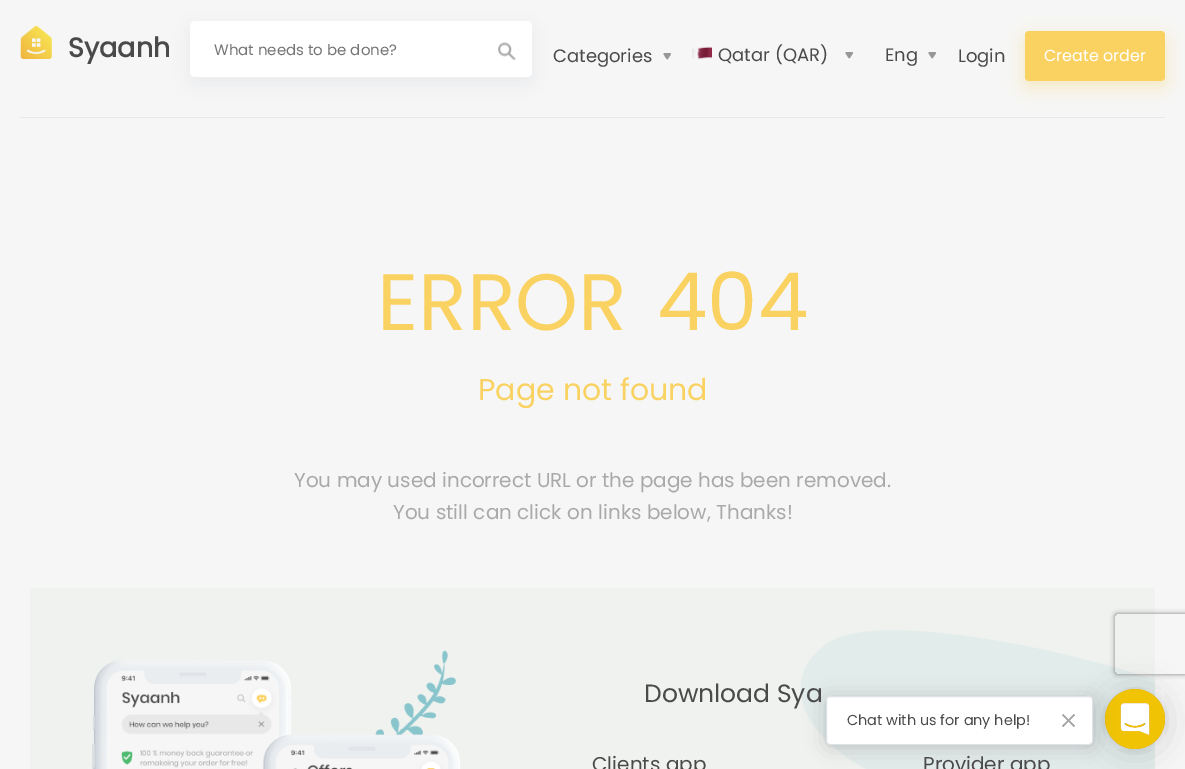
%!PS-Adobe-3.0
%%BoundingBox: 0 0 1185 769
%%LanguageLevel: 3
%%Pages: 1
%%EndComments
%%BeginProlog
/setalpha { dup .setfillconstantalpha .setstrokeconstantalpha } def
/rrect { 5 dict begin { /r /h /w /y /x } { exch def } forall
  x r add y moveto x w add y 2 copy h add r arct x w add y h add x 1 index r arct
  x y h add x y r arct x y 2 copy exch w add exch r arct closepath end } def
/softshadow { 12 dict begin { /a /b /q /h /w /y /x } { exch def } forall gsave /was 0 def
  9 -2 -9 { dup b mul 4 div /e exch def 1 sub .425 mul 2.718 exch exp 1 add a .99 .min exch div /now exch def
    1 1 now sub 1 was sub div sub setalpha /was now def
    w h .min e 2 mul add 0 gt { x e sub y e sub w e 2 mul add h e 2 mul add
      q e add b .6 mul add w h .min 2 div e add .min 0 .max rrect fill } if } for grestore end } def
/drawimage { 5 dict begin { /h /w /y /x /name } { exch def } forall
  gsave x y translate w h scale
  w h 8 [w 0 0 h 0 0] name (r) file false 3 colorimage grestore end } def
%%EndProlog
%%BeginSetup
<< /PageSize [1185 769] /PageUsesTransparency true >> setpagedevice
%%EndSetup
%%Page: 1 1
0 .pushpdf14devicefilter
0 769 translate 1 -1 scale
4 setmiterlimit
0.965 setgray
0 0 1185 769 rectfill
0.925 0.91 0.91 setrgbcolor
20 117 1145 1 rectfill
(images/1.raw) 20 26 32 33 drawimage
0.067 0.129 0.216 setrgbcolor
190 27 342 56 5 9.5 0.06 softshadow
1 setgray
190 21 342 56 5 rrect fill
(images/2.raw) 498 42 18 18 drawimage
(images/3.raw) 663 53 8 7 drawimage
(images/4.raw) 692 46 20 14 drawimage
(images/3.raw) 845 52 8 7 drawimage
(images/3.raw) 928 52 8 7 drawimage
0.98 0.824 0.384 setrgbcolor
1025 37 140 50 4 9.5 0.38 softshadow
1025 31 140 50 4 rrect fill
(images/5.raw) 30 588 1125 181 drawimage
0 setgray
1105 691 60 60 30 16 0.16 softshadow
1105 690 60 60 30 3 0.06 softshadow
(images/7.raw) 1105 689 60 60 drawimage
826 698 267 49 4 10.5 0.17 softshadow
826 697 267 49 4 1 0.06 softshadow
1 setgray
826.5 696.5 266 48 3.5 rrect gsave fill grestore
0.871 0.886 0.902 setrgbcolor
stroke
(images/6.raw) 1062 714 13 13 drawimage
gsave
newpath 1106 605 moveto 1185 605 lineto 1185 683 lineto 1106 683 lineto closepath 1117 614 moveto 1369 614 lineto 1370 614 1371 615 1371 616 curveto 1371 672 lineto 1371 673 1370 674 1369 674 curveto 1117 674 lineto 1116 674 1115 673 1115 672 curveto 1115 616 lineto 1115 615 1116 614 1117 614 curveto closepath eoclip newpath
0.502 setgray
1115 614 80 60 2 2.5 1 softshadow
grestore
/Poppins-Bold [27 0 0 -27 0 0] selectfont
0.29 setgray
68 57 moveto (Syaanh) show
/Poppins-Regular [15 0 0 -15 0 0] selectfont
0.459 setgray
214 55 moveto (What needs to be done?) show
/Poppins-Regular [18 0 0 -18 0 0] selectfont
0.29 setgray
553 62 moveto (Categories) show
718 61 moveto (Qatar \(QAR\)) show
885 61 moveto (Eng) show
958 62 moveto (Login) show
/Poppins-Regular [16 0 0 -16 0 0] selectfont
1 setgray
1044 61 moveto (Create order) show
/Poppins-Regular [80 0 0 -80 0 0] selectfont
0.98 0.824 0.384 setrgbcolor
377 330 moveto (ERROR) show
657 330 moveto (404) show
/Poppins-Regular [30 0 0 -30 0 0] selectfont
478 400 moveto (Page not found) show
/Poppins-Regular [20 0 0 -20 0 0] selectfont
0.663 setgray
294 487 moveto (You may used incorrect URL or the page has been removed.) show
393 519 moveto (You still can click on links below, Thanks!) show
/Poppins-Regular [25 0 0 -25 0 0] selectfont
0.29 setgray
644 702 moveto (Download Sya) show
/Poppins-Regular [20 0 0 -20 0 0] selectfont
592 771 moveto (Clients app) show
923 771 moveto (Provider app) show
/Poppins-Regular [14.4 0 0 -14.4 0 0] selectfont
847 725 moveto (Chat with us for any help!) show
.poppdf14devicefilter showpage
%%EOF
